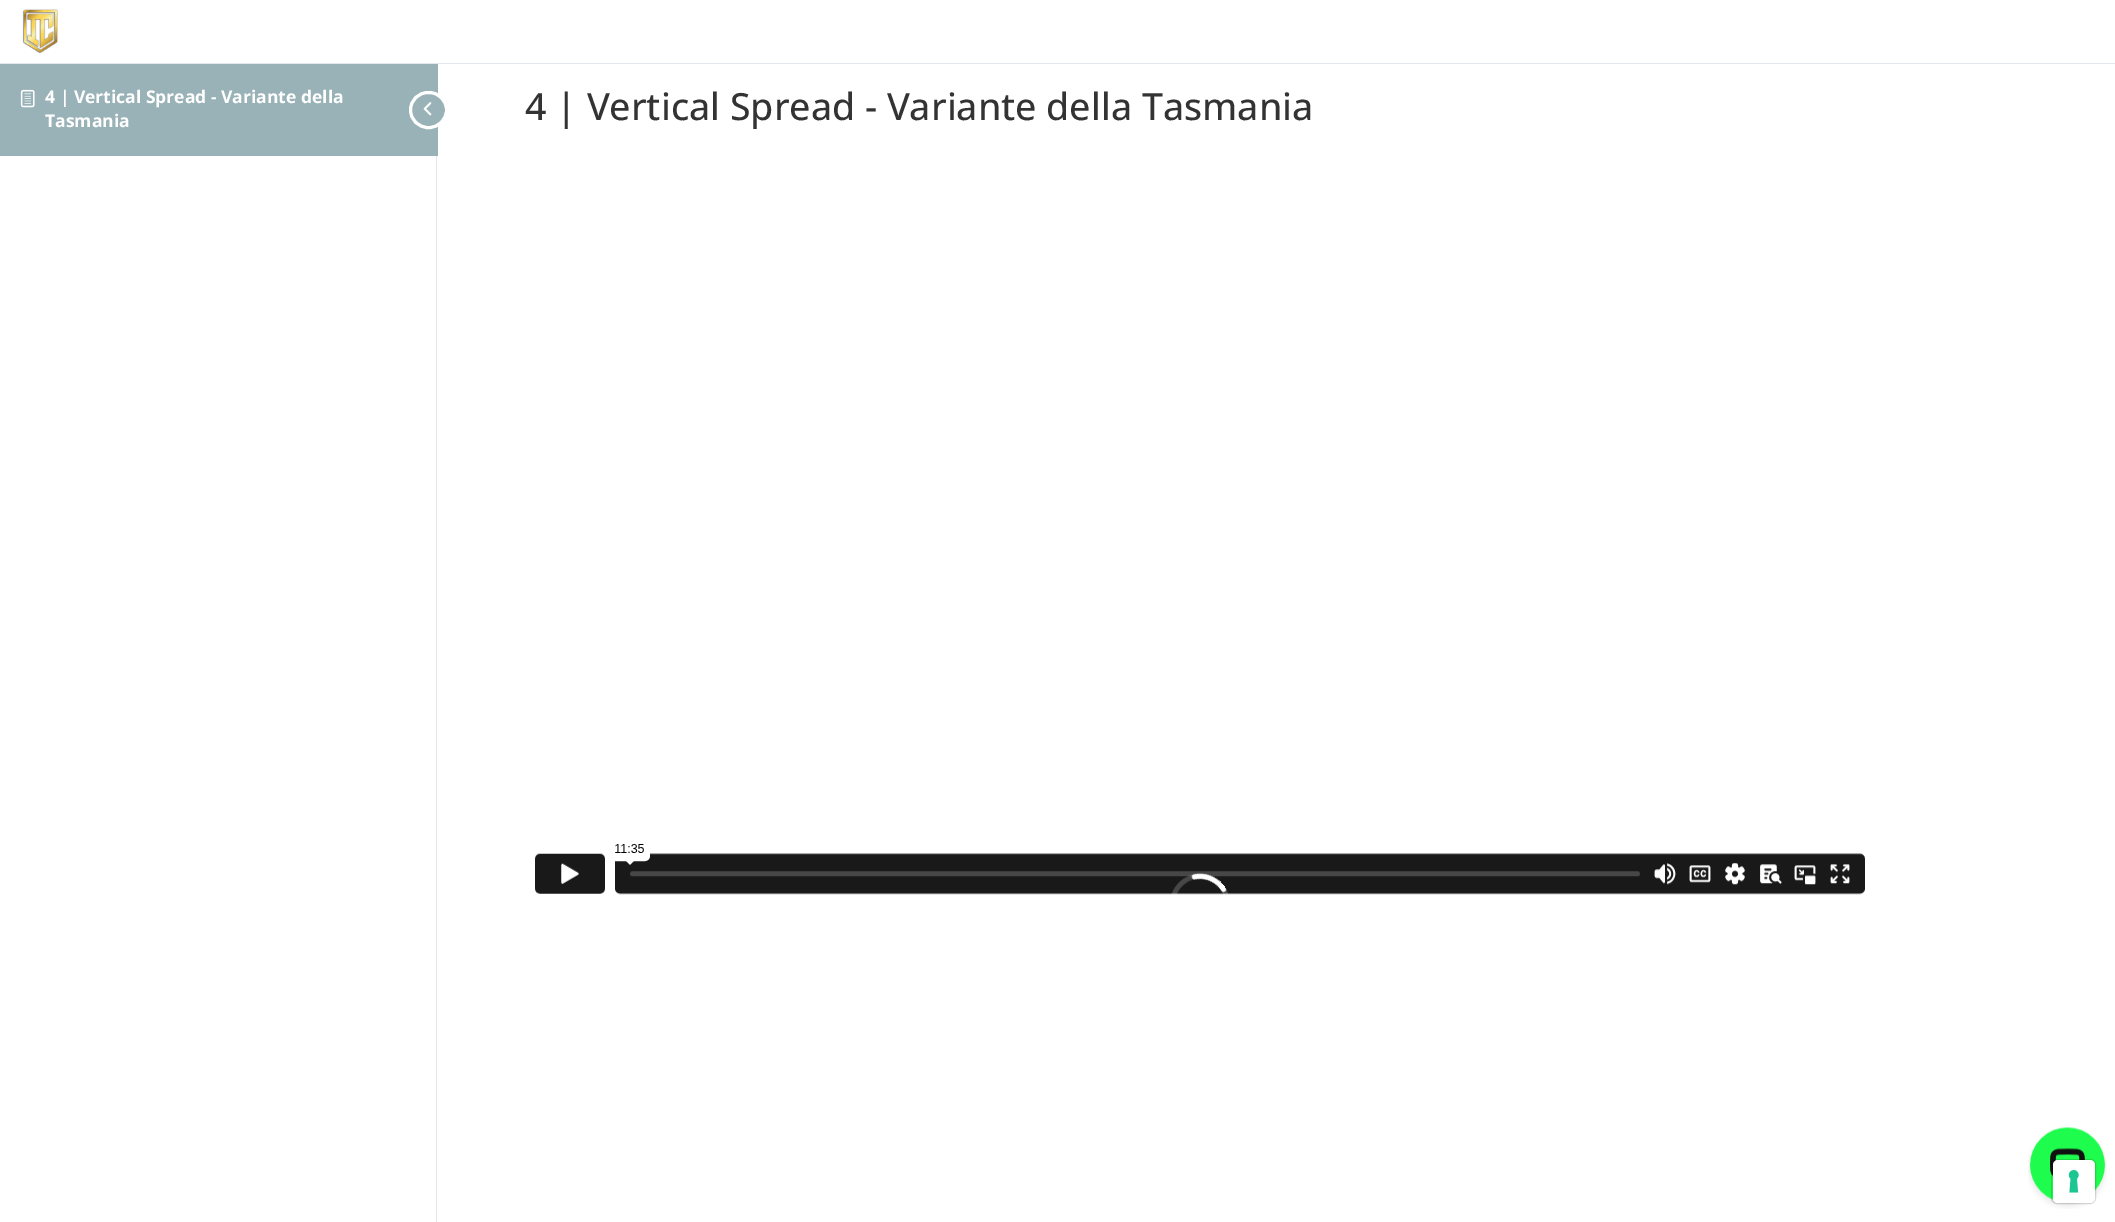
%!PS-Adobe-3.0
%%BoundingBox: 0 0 2115 1222
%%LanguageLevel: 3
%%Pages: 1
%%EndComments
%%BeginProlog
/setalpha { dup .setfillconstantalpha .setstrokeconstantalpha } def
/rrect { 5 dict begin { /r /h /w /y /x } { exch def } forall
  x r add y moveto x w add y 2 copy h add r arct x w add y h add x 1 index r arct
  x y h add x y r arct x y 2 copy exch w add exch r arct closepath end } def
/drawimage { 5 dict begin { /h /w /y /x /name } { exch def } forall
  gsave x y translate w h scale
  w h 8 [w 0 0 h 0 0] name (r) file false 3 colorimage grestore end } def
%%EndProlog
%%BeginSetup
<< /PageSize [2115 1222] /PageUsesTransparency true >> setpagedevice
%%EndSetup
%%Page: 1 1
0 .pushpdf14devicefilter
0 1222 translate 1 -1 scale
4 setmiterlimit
1 setgray
0 0 2115 1222 rectfill
0.886 0.906 0.929 setrgbcolor
436 156 1 1066 rectfill
0.6 0.698 0.718 setrgbcolor
0 64 438 92 rectfill
(images/1.raw) 20 89 15 19 drawimage
410.5 92.5 36 35 17.5 rrect gsave fill grestore
1 setgray
3 setlinewidth
stroke
(images/2.raw) 423 102 9 14 drawimage
0.886 0.906 0.929 setrgbcolor
0 63 2115 1 rectfill
(images/3.raw) 22 9 36 45 drawimage
(images/4.raw) 535 844 1330 51 drawimage
(images/5.raw) 2028 1127 79 82 drawimage
0.15 setalpha
0 setgray
1 setlinewidth
2051.5 1159.5 44 44 5.5 rrect stroke
1 setalpha
1 setgray
2053 1160 42 43 5 rrect fill
(images/6.raw) 2068 1170 11 23 drawimage
/OpenSans-Bold [17.5 0 0 -17.5 0 0] selectfont
45 103 moveto (4 | Vertical Spread - Variante della) show
45 127 moveto (Tasmania) show
/OpenSans-Medium [37.5 0 0 -37.5 0 0] selectfont
0.2 setgray
525 120 moveto (4 | Vertical Spread - Variante della Tasmania) show
.poppdf14devicefilter showpage
%%EOF
